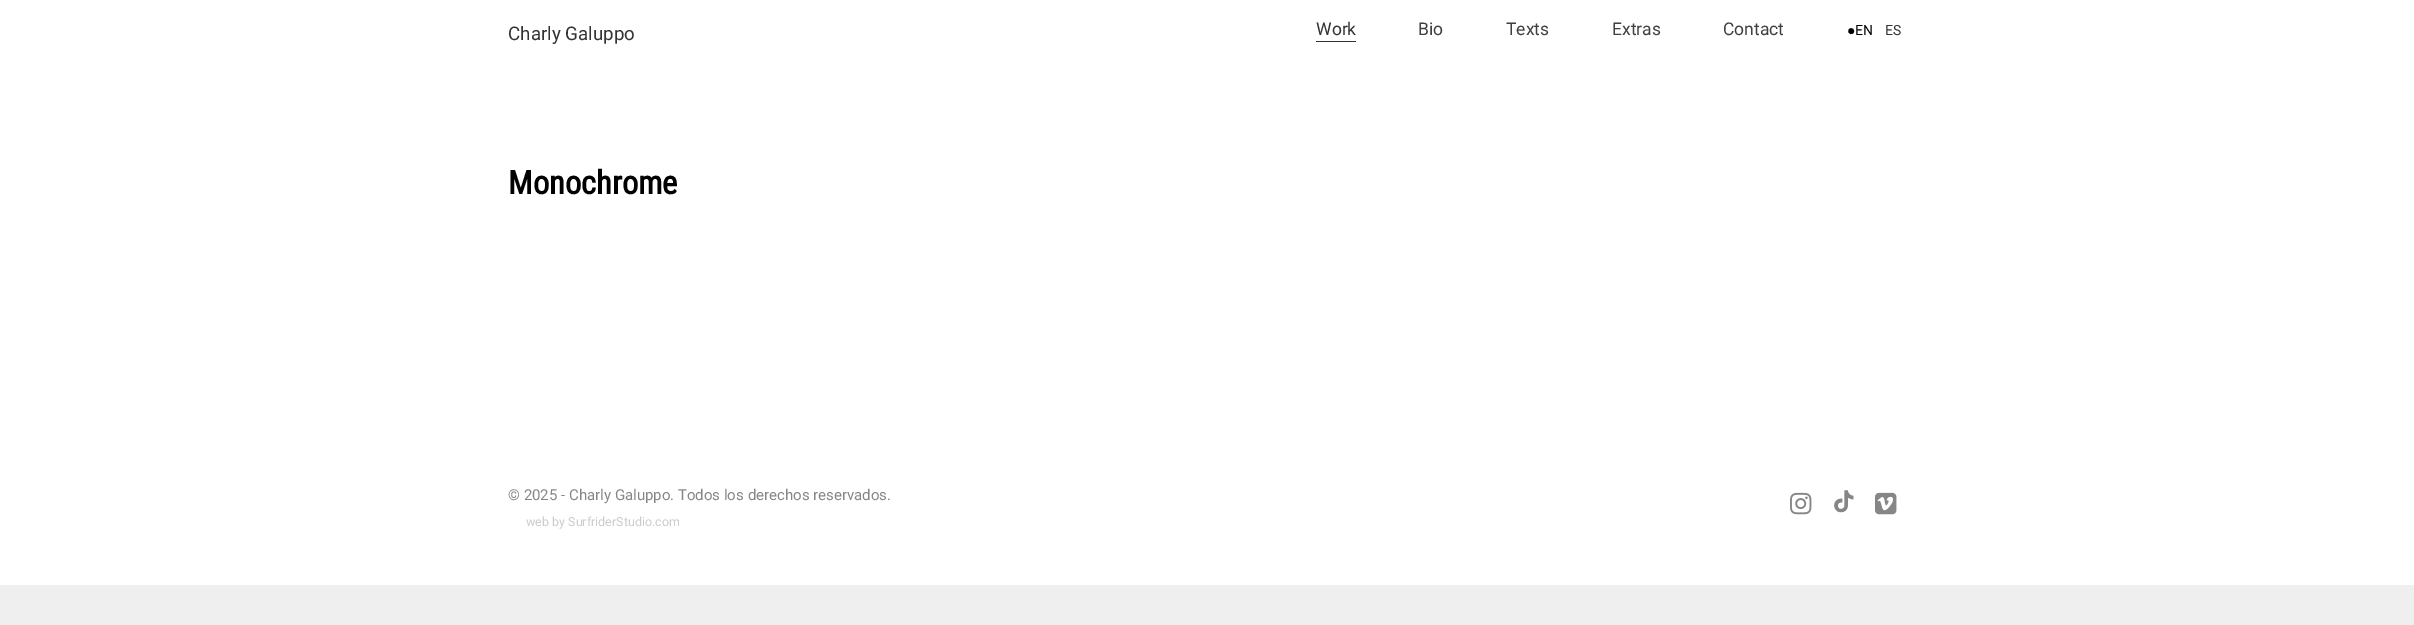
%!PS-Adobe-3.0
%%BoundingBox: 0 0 2414 625
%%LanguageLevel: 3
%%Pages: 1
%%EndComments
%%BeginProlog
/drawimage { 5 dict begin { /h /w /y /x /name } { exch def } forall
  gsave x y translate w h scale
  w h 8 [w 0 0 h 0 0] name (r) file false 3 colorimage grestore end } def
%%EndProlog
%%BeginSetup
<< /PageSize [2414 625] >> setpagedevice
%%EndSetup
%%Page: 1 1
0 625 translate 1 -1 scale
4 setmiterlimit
0.937 setgray
0 0 2414 625 rectfill
1 setgray
0 0 2414 585 rectfill
0.2 setgray
1316 41 40 1 rectfill
(images/1.raw) 1790 492 22 23 drawimage
(images/2.raw) 1834 490 20 23 drawimage
(images/3.raw) 1875 492 22 23 drawimage
/Roboto-Regular [18.75 0 0 -18.75 0 0] selectfont
508 40 moveto (Charly Galuppo) show
/Roboto-Regular [17.5 0 0 -17.5 0 0] selectfont
1316 35 moveto (Work) show
0.251 setgray
1418 35 moveto (Bio) show
1506 35 moveto (Texts) show
1612 35 moveto (Extras) show
1723 35 moveto (Contact) show
/LiberationSans-Regular [14 0 0 -14 0 0] selectfont
0 setgray
1847 35 moveto (●) show
/Roboto-Regular [14 0 0 -14 0 0] selectfont
1855 35 moveto (EN) show
0.2 setgray
1885 35 moveto (ES) show
/RobotoCondensed-Bold [32.5 0 0 -32.5 0 0] selectfont
0 setgray
508 194 moveto (Monochrome) show
/Roboto-Regular [15 0 0 -15 0 0] selectfont
0.525 setgray
508 500 moveto (© 2025 - Charly Galuppo. Todos los derechos reservados.) show
/Roboto-Regular [12.5 0 0 -12.5 0 0] selectfont
0.8 setgray
526 526 moveto (web by SurfriderStudio.com) show
showpage
%%EOF
